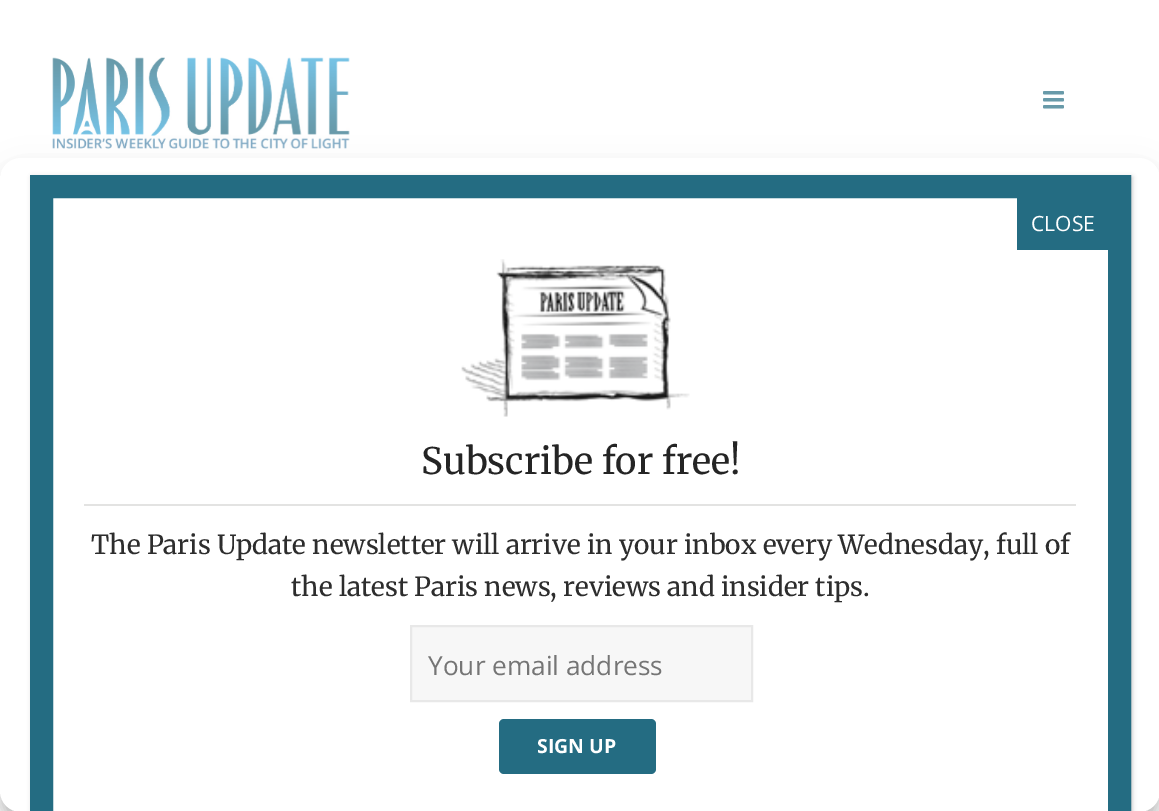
%!PS-Adobe-3.0
%%BoundingBox: 0 0 1159 811
%%LanguageLevel: 3
%%Pages: 1
%%EndComments
%%BeginProlog
/setalpha { dup .setfillconstantalpha .setstrokeconstantalpha } def
/rrect { 5 dict begin { /r /h /w /y /x } { exch def } forall
  x r add y moveto x w add y 2 copy h add r arct x w add y h add x 1 index r arct
  x y h add x y r arct x y 2 copy exch w add exch r arct closepath end } def
/softshadow { 12 dict begin { /a /b /q /h /w /y /x } { exch def } forall gsave /was 0 def
  9 -2 -9 { dup b mul 4 div /e exch def 1 sub .425 mul 2.718 exch exp 1 add a .99 .min exch div /now exch def
    1 1 now sub 1 was sub div sub setalpha /was now def
    w h .min e 2 mul add 0 gt { x e sub y e sub w e 2 mul add h e 2 mul add
      q e add b .6 mul add w h .min 2 div e add .min 0 .max rrect fill } if } for grestore end } def
/drawimage { 5 dict begin { /h /w /y /x /name } { exch def } forall
  gsave x y translate w h scale
  w h 8 [w 0 0 h 0 0] name (r) file false 3 colorimage grestore end } def
%%EndProlog
%%BeginSetup
<< /PageSize [1159 811] /PageUsesTransparency true >> setpagedevice
%%EndSetup
%%Page: 1 1
0 .pushpdf14devicefilter
0 811 translate 1 -1 scale
4 setmiterlimit
1 setgray
0 0 1159 811 rectfill
(images/1.raw) 52 57 298 92 drawimage
(images/2.raw) 1043 91 21 18 drawimage
0.31 setgray
0 168 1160 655 21 5 0.23 softshadow
0 175 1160 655 21 17.5 0.19 softshadow
1 setgray
0 158 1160 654 21 rrect fill
0.008 setgray
32 177 1100 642 0 2.5 0.23 softshadow
1 setgray
newpath 41.5 186.5 moveto 1119.5 186.5 lineto 1119.5 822.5 lineto 41.5 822.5 lineto closepath gsave fill grestore
0.141 0.424 0.51 setrgbcolor
23 setlinewidth
stroke
1017 198 91 52 rectfill
(images/3.raw) 461 259 229 158 drawimage
0.89 0.89 0.886 setrgbcolor
84 504 992 2 rectfill
0.969 setgray
newpath 411 626 moveto 752 626 lineto 752 701 lineto 411 701 lineto closepath gsave fill grestore
0.91 setgray
2 setlinewidth
stroke
0.141 0.424 0.51 setrgbcolor
499 719 157 55 5 rrect fill
/OpenSans-Regular [21 0 0 -21 0 0] selectfont
1 setgray
1031 231 moveto (CLOSE) show
/Merriweather-Light [36.5 0 0 -36.5 0 0] selectfont
0.141 setgray
421 474 moveto (Subscribe for free!) show
/Merriweather-Light [26.25 0 0 -26.25 0 0] selectfont
0.176 setgray
91 554 moveto (The Paris Update newsletter will arrive in your inbox every Wednesday, full of) show
291 596 moveto (the latest Paris news, reviews and insider tips.) show
/OpenSans-Regular [26.25 0 0 -26.25 0 0] selectfont
0.459 setgray
428 675 moveto (Your email address) show
/OpenSans-Bold [19.5 0 0 -19.5 0 0] selectfont
1 setgray
537 753 moveto (SIGN UP) show
.poppdf14devicefilter showpage
%%EOF
